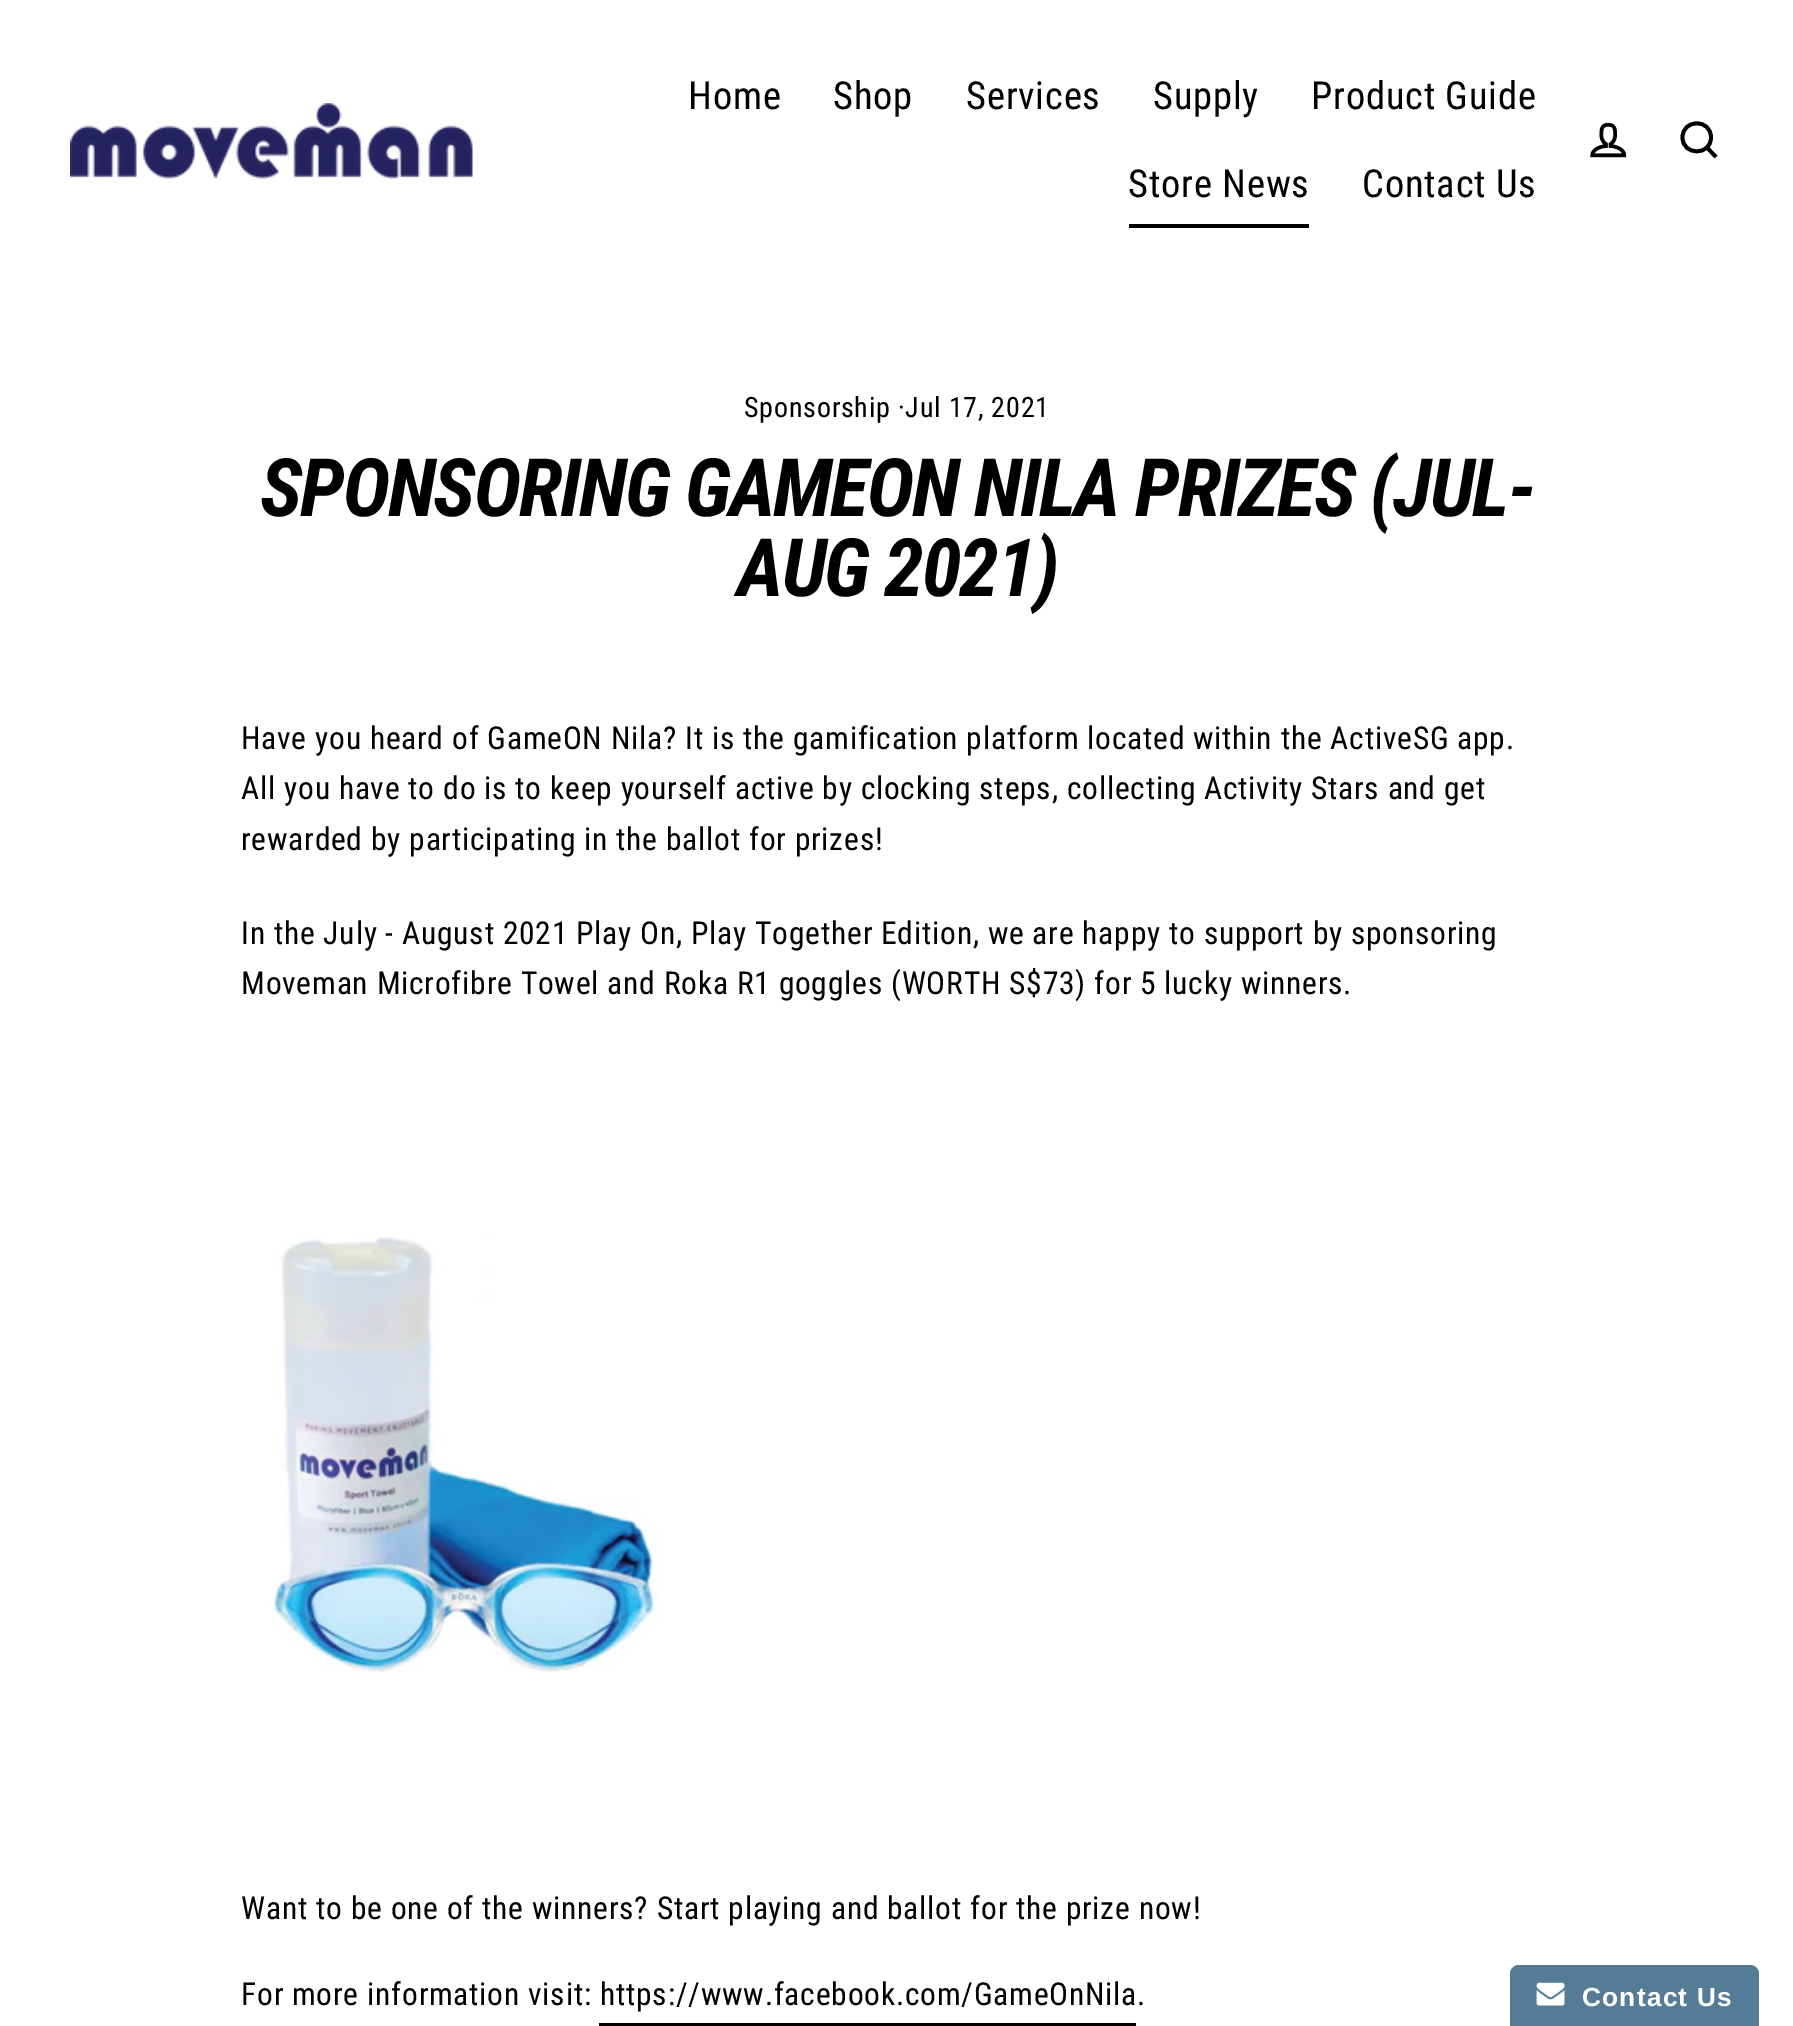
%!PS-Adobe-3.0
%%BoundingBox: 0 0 1793 2026
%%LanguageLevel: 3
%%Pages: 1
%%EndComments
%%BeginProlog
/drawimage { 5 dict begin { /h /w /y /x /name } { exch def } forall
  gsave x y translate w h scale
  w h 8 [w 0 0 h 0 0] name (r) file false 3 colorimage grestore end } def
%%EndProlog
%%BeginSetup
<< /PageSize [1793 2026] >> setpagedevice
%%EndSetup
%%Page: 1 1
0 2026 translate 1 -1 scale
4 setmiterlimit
1 setgray
0 0 1793 2026 rectfill
(images/1.raw) 70 103 403 76 drawimage
0 setgray
1129 224 180 4 rectfill
(images/2.raw) 1590 122 37 36 drawimage
3.8 setlinewidth
newpath 1711 137.5 moveto 1711 156 1682.5 156 1682.5 137.5 curveto 1682.5 118.5 1711 118.5 1711 137.5 curveto closepath 1716 157 moveto 1707 147.5 lineto stroke
(images/3.raw) 271 1236 389 436 drawimage
599 2023 537 3 rectfill
0.333 0.482 0.592 setrgbcolor
newpath 1519 1965 moveto 1750 1965 lineto 1755 1965 1759 1969 1759 1974 curveto 1759 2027 lineto 1510 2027 lineto 1510 1974 lineto 1510 1969 1514 1965 1519 1965 curveto closepath fill
(images/4.raw) 1536 1982 29 24 drawimage
/RobotoCondensed-Regular [38.5 0 0 -38.5 0 0] selectfont
0 setgray
688 109 moveto 0.8 0 (Home) ashow
833 109 moveto 0.8 0 (Shop) ashow
966 109 moveto 0.8 0 (Services) ashow
1153 109 moveto 0.8 0 (Supply) ashow
1311 109 moveto 0.8 0 (Product Guide) ashow
1128 197 moveto 0.8 0 (Store News) ashow
1362 197 moveto 0.8 0 (Contact Us) ashow
/RobotoCondensed-Regular [28 0 0 -28 0 0] selectfont
744 417 moveto 0.8 0 (Sponsorship ·Jul 17, 2021) ashow
/RobotoCondensed-BoldItalic [80.5 0 0 -80.5 0 0] selectfont
260 516 moveto -2 0 (SPONSORING GAMEON NILA PRIZES \(JUL-) ashow
737 596 moveto -2 0 (AUG 2021\)) ashow
/RobotoCondensed-Regular [31.5 0 0 -31.5 0 0] selectfont
241 749 moveto 0.8 0 (Have you heard of GameON Nila? It is the gamification platform located within the ActiveSG app.) ashow
241 799 moveto 0.8 0 (All you have to do is to keep yourself active by clocking steps, collecting Activity Stars and get) ashow
241 850 moveto 0.8 0 (rewarded by participating in the ballot for prizes!) ashow
241 944 moveto 0.8 0 (In the July - August 2021 Play On, Play Together Edition, we are happy to support by sponsoring) ashow
241 994 moveto 0.8 0 (Moveman Microfibre Towel and Roka R1 goggles \(WORTH S$73\) for 5 lucky winners.) ashow
241 1919 moveto 0.8 0 (Want to be one of the winners? Start playing and ballot for the prize now!) ashow
241 2005 moveto 0.8 0 (For more information visit: https://www.facebook.com/GameOnNila.) ashow
/LiberationSans-Bold [26.25 0 0 -26.25 0 0] selectfont
1 setgray
1582 2006 moveto 1.25 0 (Contact Us) ashow
showpage
%%EOF
